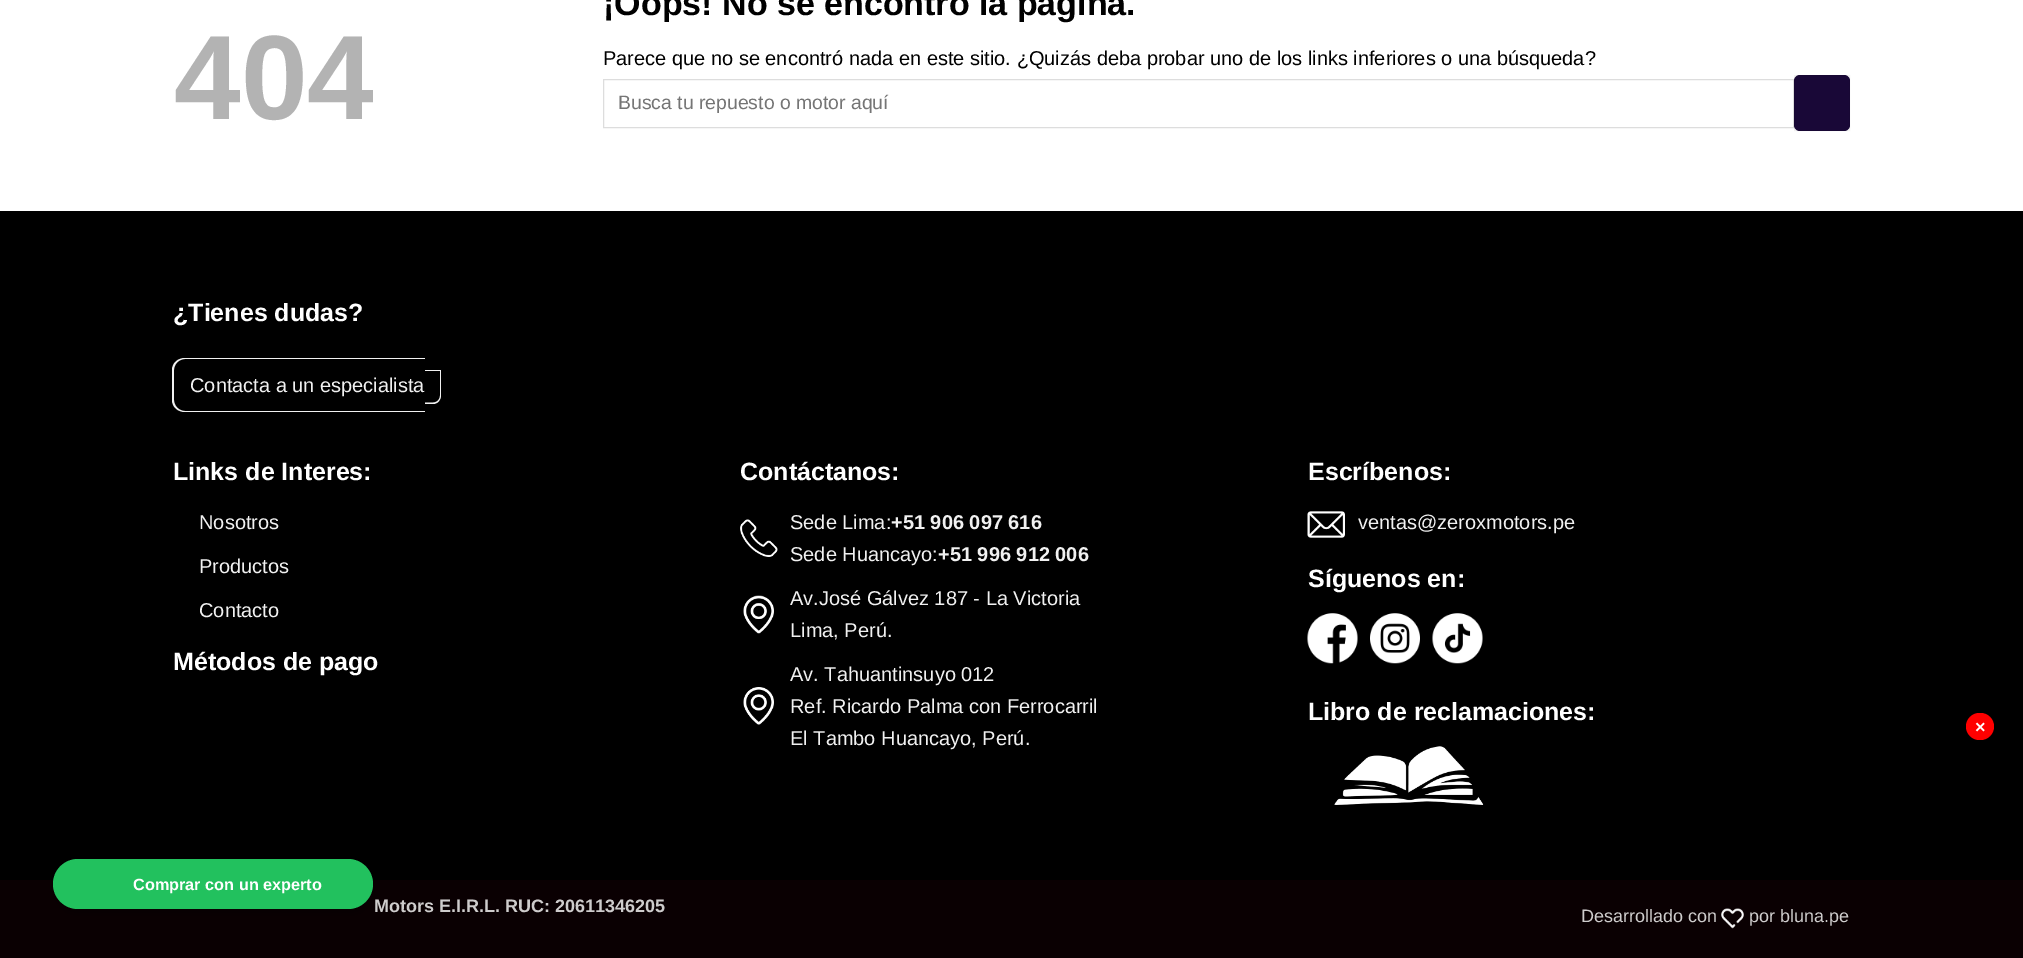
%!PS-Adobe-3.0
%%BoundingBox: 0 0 2023 958
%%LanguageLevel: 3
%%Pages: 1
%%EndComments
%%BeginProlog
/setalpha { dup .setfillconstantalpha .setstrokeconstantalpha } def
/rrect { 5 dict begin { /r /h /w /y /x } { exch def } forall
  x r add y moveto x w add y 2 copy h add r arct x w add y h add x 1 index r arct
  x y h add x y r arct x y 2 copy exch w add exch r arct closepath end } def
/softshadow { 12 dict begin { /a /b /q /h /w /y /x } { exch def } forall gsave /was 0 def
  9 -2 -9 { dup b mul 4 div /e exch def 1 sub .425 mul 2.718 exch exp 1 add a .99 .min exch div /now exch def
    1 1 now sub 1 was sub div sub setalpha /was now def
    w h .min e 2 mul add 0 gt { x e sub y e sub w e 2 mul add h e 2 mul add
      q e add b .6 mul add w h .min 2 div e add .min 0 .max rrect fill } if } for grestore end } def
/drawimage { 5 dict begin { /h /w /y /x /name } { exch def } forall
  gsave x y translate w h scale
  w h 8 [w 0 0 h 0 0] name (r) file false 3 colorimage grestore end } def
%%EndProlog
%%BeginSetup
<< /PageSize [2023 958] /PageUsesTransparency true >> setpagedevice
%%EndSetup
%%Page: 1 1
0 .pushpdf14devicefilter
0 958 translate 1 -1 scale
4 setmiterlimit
1 setgray
0 0 2023 958 rectfill
0.867 setgray
603.5 79.5 1190 48 rectstroke
0.098 0.031 0.216 setrgbcolor
1794 75 56 56 6 rrect fill
0.05 setalpha
0 setgray
1794.5 75.5 55 55 rectstroke
1 setalpha
0 211 2023 669 rectfill
0.945 setgray
newpath 185 358 moveto 425 358 lineto 425 412 lineto 185 412 lineto 178 412 172 407 172 400 curveto 172 370 lineto 172 363 178 358 185 358 curveto closepath 185 359 moveto 425 359 lineto 425 411 lineto 185 411 lineto 179 411 174 406 174 400 curveto 174 370 lineto 174 364 179 359 185 359 curveto closepath eofill
newpath 425 370 moveto 441 370 lineto 441 395.5 lineto 441 400 437.5 404 433 404 curveto 425 404 lineto closepath 425 371 moveto 440 371 lineto 440 395.5 lineto 440 399.5 437 402.5 433 402.5 curveto 425 402.5 lineto closepath eofill
(images/1.raw) 740 519 38 38 drawimage
(images/2.raw) 743 595 31 39 drawimage
(images/3.raw) 743 687 31 38 drawimage
(images/4.raw) 1307 511 38 27 drawimage
(images/5.raw) 1307 613 51 51 drawimage
(images/6.raw) 1370 613 50 51 drawimage
(images/7.raw) 1432 613 51 51 drawimage
(images/8.raw) 1334 746 150 59 drawimage
0.039 0 0.008 setrgbcolor
0 880 2023 78 rectfill
(images/9.raw) 1721 908 23 21 drawimage
1 0 0 setrgbcolor
1966 713 28 27 13.5 rrect fill
0 setgray
54 865 320 50 25 6 0.25 softshadow
0.133 0.757 0.369 setrgbcolor
53 859 320 50 25 rrect fill
/LiberationSans-Bold [120 0 0 -120 0 0] selectfont
0.702 setgray
174 119 moveto (404) show
/LiberationSans-Bold [34 0 0 -34 0 0] selectfont
0 setgray
603 15 moveto (¡Oops! No se encontró la página.) show
/LiberationSans-Regular [20 0 0 -20 0 0] selectfont
603 65 moveto (Parece que no se encontró nada en este sitio. ¿Quizás deba probar uno de los links inferiores o una búsqueda?) show
/LiberationSans-Regular [19.4 0 0 -19.4 0 0] selectfont
0.459 setgray
618 109 moveto (Busca tu repuesto o motor aquí) show
/LiberationSans-Bold [25 0 0 -25 0 0] selectfont
1 setgray
173 321 moveto (¿Tienes dudas?) show
/LiberationSans-Regular [20 0 0 -20 0 0] selectfont
0.945 setgray
190 392 moveto (Contacta a un especialista) show
/LiberationSans-Bold [25 0 0 -25 0 0] selectfont
1 setgray
173 480 moveto (Links de Interes:) show
/LiberationSans-Regular [20 0 0 -20 0 0] selectfont
0.945 setgray
199 529 moveto (Nosotros) show
199 573 moveto (Productos) show
199 617 moveto (Contacto) show
/LiberationSans-Bold [25 0 0 -25 0 0] selectfont
1 setgray
173 670 moveto (Métodos de pago) show
740 480 moveto (Contáctanos:) show
/LiberationSans-Regular [20 0 0 -20 0 0] selectfont
0.945 setgray
790 529 moveto (Sede Lima:) show
/LiberationSans-Bold [20 0 0 -20 0 0] selectfont
891 529 moveto (+51 906 097 616) show
/LiberationSans-Regular [20 0 0 -20 0 0] selectfont
790 561 moveto (Sede Huancayo:) show
/LiberationSans-Bold [20 0 0 -20 0 0] selectfont
938 561 moveto (+51 996 912 006) show
/LiberationSans-Regular [20 0 0 -20 0 0] selectfont
790 605 moveto (Av.José Gálvez 187 - La Victoria) show
790 637 moveto (Lima, Perú.) show
790 681 moveto (Av. Tahuantinsuyo 012) show
790 713 moveto (Ref. Ricardo Palma con Ferrocarril) show
790 745 moveto (El Tambo Huancayo, Perú.) show
/LiberationSans-Bold [25 0 0 -25 0 0] selectfont
1 setgray
1308 480 moveto (Escríbenos:) show
/LiberationSans-Regular [20 0 0 -20 0 0] selectfont
0.945 setgray
1358 529 moveto (ventas@zeroxmotors.pe) show
/LiberationSans-Bold [25 0 0 -25 0 0] selectfont
1 setgray
1308 587 moveto (Síguenos en:) show
1308 720 moveto (Libro de reclamaciones:) show
/LiberationSans-Bold [18 0 0 -18 0 0] selectfont
0.808 0.8 0.8 setrgbcolor
374 912 moveto (Motors E.I.R.L. RUC: 20611346205) show
/LiberationSans-Regular [18 0 0 -18 0 0] selectfont
1581 922 moveto (Desarrollado con) show
1749 922 moveto (por bluna.pe) show
/LiberationSans-Bold [18 0 0 -18 0 0] selectfont
1 setgray
1975 733 moveto (×) show
/LiberationSans-Bold [16.25 0 0 -16.25 0 0] selectfont
133 890 moveto (Comprar con un experto) show
.poppdf14devicefilter showpage
%%EOF
